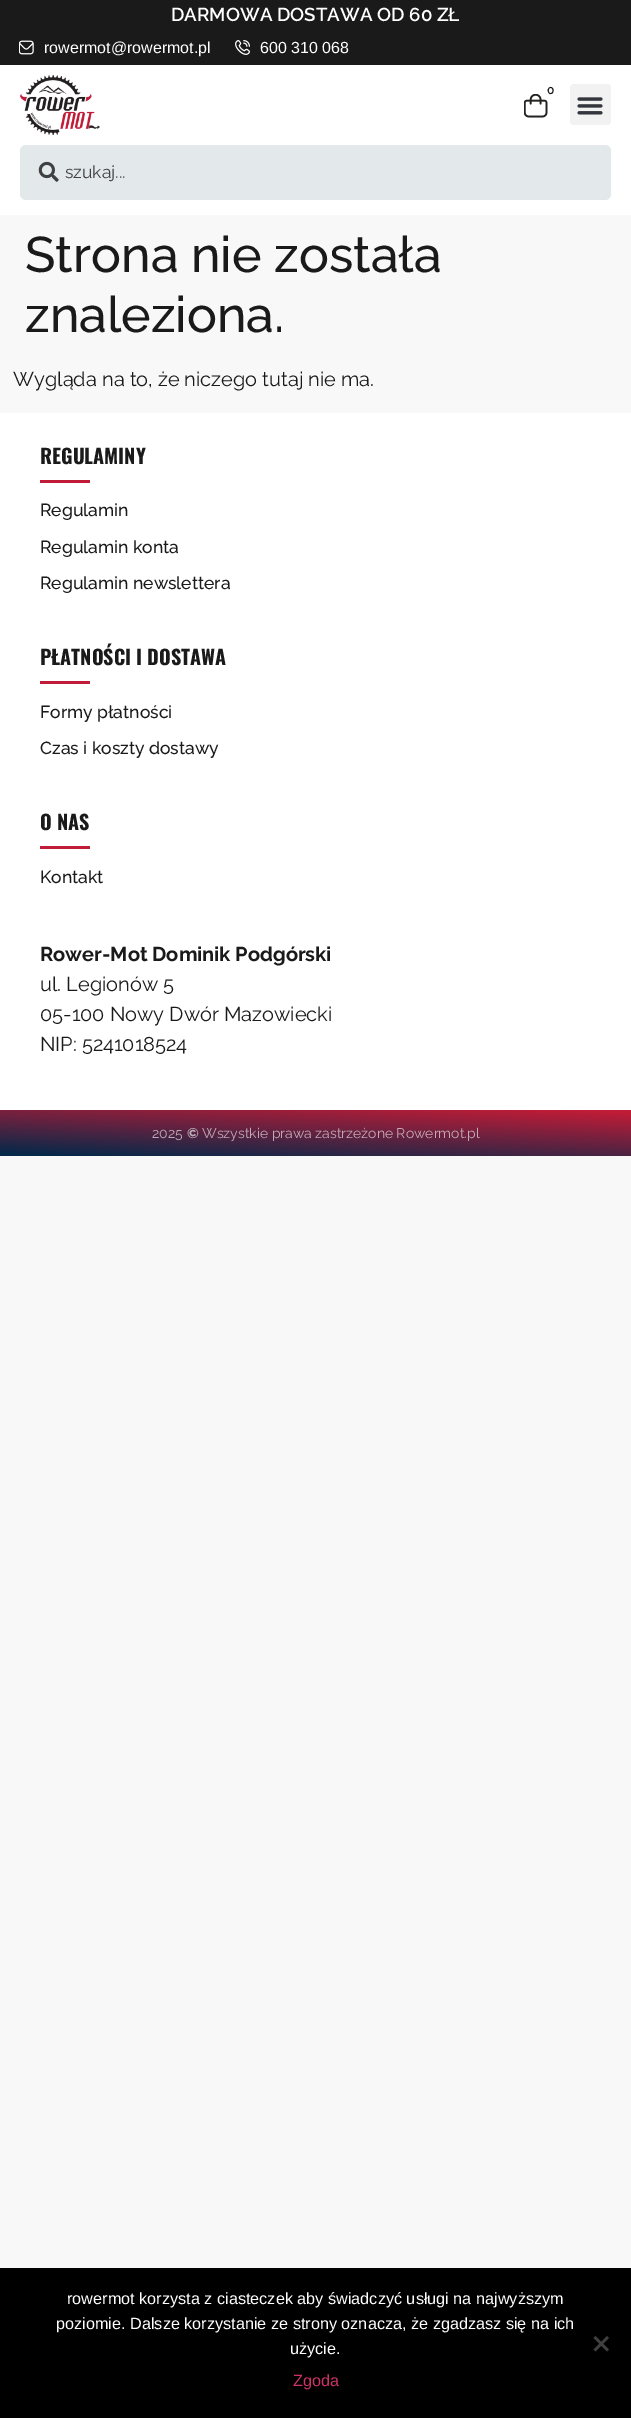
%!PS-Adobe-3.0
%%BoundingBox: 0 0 631 2418
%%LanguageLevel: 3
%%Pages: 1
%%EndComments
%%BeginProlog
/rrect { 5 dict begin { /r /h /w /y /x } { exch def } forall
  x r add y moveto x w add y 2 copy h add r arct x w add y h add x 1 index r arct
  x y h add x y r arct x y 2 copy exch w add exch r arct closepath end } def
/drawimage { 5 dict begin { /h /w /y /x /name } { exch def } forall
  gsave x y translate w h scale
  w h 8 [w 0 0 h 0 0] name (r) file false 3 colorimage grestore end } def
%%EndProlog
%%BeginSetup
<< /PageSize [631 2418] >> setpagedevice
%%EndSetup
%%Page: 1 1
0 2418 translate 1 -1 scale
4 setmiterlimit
0.973 setgray
0 0 631 2418 rectfill
0.102 setgray
0 0 631 65 rectfill
(images/1.raw) 19 40 15 15 drawimage
(images/2.raw) 235 40 15 15 drawimage
1 setgray
0 65 631 150 rectfill
(images/3.raw) 20 75 80 60 drawimage
(images/4.raw) 524 94 24 24 drawimage
0.949 setgray
570 84 41 41 4 rrect fill
(images/5.raw) 577 97 26 18 drawimage
0.89 0.91 0.922 setrgbcolor
20 145 591 55 6 rrect fill
(images/6.raw) 38 161 21 21 drawimage
1 setgray
0 413 631 697 rectfill
0.753 0.11 0.216 setrgbcolor
40 480 50 3 rectfill
40 681 50 3 rectfill
40 846 50 3 rectfill
gsave newpath 0 1110 moveto 631 1110 lineto 631 1156 lineto 0 1156 lineto closepath clip newpath
<< /ShadingType 2 /ColorSpace /DeviceRGB /Coords [317 1099 314 1167] /Extend [true true] /Function << /FunctionType 2 /Domain [0 1] /C0 [0.753 0.11 0.216] /C1 [0.024 0.157 0.286] /N 1 >> >> shfill grestore
0 setgray
0 2268 631 150 rectfill
0.251 setgray
newpath 607 2336 moveto 609 2338 lineto 595.5 2351.5 lineto 593.5 2349.5 lineto closepath fill
newpath 593.5 2338 moveto 595.5 2336 lineto 609 2349.5 lineto 607 2351.5 lineto closepath fill
/Raleway-SemiBold [18.75 0 0 -18.75 0 0] selectfont
1 setgray
171 21 moveto (DARMOWA DOSTAWA OD 60 ZŁ) show
/LiberationSans-Regular [16 0 0 -16 0 0] selectfont
44 53 moveto (rowermot@rowermot.pl) show
260 53 moveto (600 310 068) show
/Raleway-SemiBold [12 0 0 -12 0 0] selectfont
0.102 setgray
547 94 moveto (0) show
/Raleway-Regular [17.5 0 0 -17.5 0 0] selectfont
0.251 setgray
65 178 moveto (szukaj...) show
/Raleway-Medium [50 0 0 -50 0 0] selectfont
0.102 setgray
25 272 moveto (Strona nie została) show
25 332 moveto (znaleziona.) show
/Raleway-Regular [20 0 0 -20 0 0] selectfont
13 386 moveto (Wygląda na to, że niczego tutaj nie ma.) show
/Oswald-Bold [20 0 0 -20 0 0] selectfont
40 464 moveto (REGULAMINY) show
/Raleway-Medium [17.5 0 0 -17.5 0 0] selectfont
40 516 moveto (Regulamin) show
40 553 moveto (Regulamin konta) show
40 589 moveto (Regulamin newslettera) show
/Oswald-Bold [20 0 0 -20 0 0] selectfont
40 665 moveto (PŁATNOŚCI I DOSTAWA) show
/Raleway-Medium [17.5 0 0 -17.5 0 0] selectfont
40 718 moveto (Formy płatności) show
40 754 moveto (Czas i koszty dostawy) show
/Oswald-Bold [20 0 0 -20 0 0] selectfont
40 830 moveto (O NAS) show
/Raleway-Medium [17.5 0 0 -17.5 0 0] selectfont
40 883 moveto (Kontakt) show
/Raleway-Bold [20 0 0 -20 0 0] selectfont
40 961 moveto (Rower-Mot Dominik Podgórski) show
/Raleway-Regular [20 0 0 -20 0 0] selectfont
40 991 moveto (ul. Legionów 5) show
40 1021 moveto (05-100 Nowy Dwór Mazowiecki) show
40 1051 moveto (NIP: 5241018524) show
/Raleway-Regular [14 0 0 -14 0 0] selectfont
0.737 0.675 0.718 setrgbcolor
152 1138 moveto (2025) show
/Raleway-Bold [14 0 0 -14 0 0] selectfont
187 1138 moveto (©) show
/Raleway-Regular [14 0 0 -14 0 0] selectfont
0.769 0.671 0.714 setrgbcolor
202 1138 moveto (Wszystkie prawa zastrzeżone Rowermot.pl) show
/LiberationSans-Regular [16.25 0 0 -16.25 0 0] selectfont
1 setgray
67 2304 moveto (rowermot korzysta z ciasteczek aby świadczyć usługi na najwyższym) show
56 2329 moveto (poziomie. Dalsze korzystanie ze strony oznacza, że zgadzasz się na ich) show
290 2354 moveto (użycie.) show
0.8 0.2 0.4 setrgbcolor
293 2386 moveto (Zgoda) show
showpage
%%EOF
